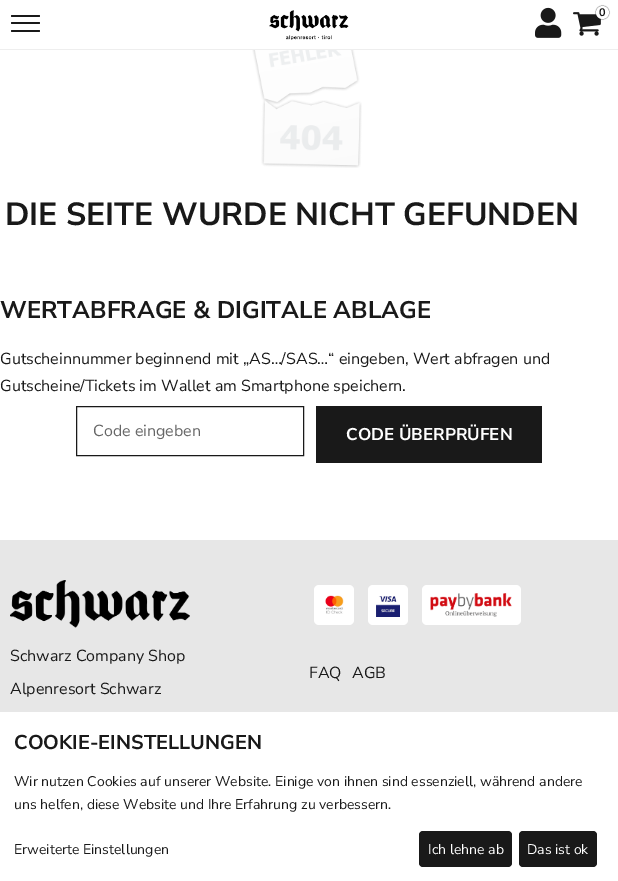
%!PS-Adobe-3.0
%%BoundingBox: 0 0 618 881
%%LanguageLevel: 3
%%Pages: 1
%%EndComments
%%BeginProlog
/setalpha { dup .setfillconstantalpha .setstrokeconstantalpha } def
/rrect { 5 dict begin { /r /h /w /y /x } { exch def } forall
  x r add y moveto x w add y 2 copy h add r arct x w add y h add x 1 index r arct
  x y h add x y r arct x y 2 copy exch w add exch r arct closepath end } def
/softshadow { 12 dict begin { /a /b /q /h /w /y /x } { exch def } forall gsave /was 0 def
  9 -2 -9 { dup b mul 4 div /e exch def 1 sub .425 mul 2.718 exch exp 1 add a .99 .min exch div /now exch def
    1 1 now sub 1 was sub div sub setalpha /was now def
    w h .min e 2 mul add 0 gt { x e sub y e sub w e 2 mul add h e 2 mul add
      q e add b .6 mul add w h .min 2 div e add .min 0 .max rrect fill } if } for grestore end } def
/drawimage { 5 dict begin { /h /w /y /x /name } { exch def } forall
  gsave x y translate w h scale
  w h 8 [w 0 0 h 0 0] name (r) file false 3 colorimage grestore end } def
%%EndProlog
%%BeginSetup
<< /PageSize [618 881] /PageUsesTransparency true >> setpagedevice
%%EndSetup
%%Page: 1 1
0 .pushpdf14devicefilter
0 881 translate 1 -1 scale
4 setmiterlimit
1 setgray
0 0 618 881 rectfill
0.933 setgray
0 49 618 1 rectfill
(images/1.raw) 269 10 80 30 drawimage
(images/2.raw) 535 7 27 31 drawimage
(images/3.raw) 573 12 28 24 drawimage
0.098 setgray
596 6 13 13 6.5 0.5 1 softshadow
1 setgray
newpath 602.5 12.5 6.5 0 360 arc closepath fill
0.098 setgray
11 15 29 2 1 rrect fill
11 22 29 2 1 rrect fill
11 30 29 2 1 rrect fill
(images/4.raw) 252 50 110 118 drawimage
76.5 406.5 227 49 rectstroke
316 406 226 57 rectfill
0.906 setgray
0 540 618 172 rectfill
(images/5.raw) 10 580 180 48 drawimage
1 setgray
314 585 40 40 5 rrect fill
368 585 40 40 5 rrect fill
422 585 99 40 5 rrect fill
(images/6.raw) 325 595 19 19 drawimage
(images/7.raw) 376 596 24 21 drawimage
(images/8.raw) 430 593 82 24 drawimage
0.098 setgray
419 831 93 36 4 rrect fill
519 831 78 36 4 rrect fill
/NunitoSans-ExtraLight [11 0 0 -11 0 0] selectfont
599 16 moveto (0) show
/NunitoSans-ExtraLight [32 0 0 -32 0 0] selectfont
5 225 moveto (DIE SEITE WURDE NICHT GEFUNDEN) show
/NunitoSans-ExtraLight [24 0 0 -24 0 0] selectfont
0 318 moveto (WERTABFRAGE & DIGITALE ABLAGE) show
/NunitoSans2-ExtraLight [16 0 0 -16 0 0] selectfont
0 364 moveto (Gutscheinnummer beginnend mit „AS…/SAS…“ eingeben, Wert abfragen und) show
0 391 moveto (Gutscheine/Tickets im Wallet am Smartphone speichern.) show
0.4 setgray
93 436 moveto (Code eingeben) show
/NunitoSans-ExtraLight [17 0 0 -17 0 0] selectfont
1 setgray
346 440 moveto (CODE ÜBERPRÜFEN) show
/NunitoSans2-ExtraLight [16 0 0 -16 0 0] selectfont
0.098 setgray
10 661 moveto (Schwarz Company Shop) show
10 694 moveto (Alpenresort Schwarz) show
309 678 moveto (FAQ) show
352 678 moveto (AGB) show
/NunitoSans-ExtraLight [20 0 0 -20 0 0] selectfont
14 749 moveto (COOKIE-EINSTELLUNGEN) show
/NunitoSans2-ExtraLight [14 0 0 -14 0 0] selectfont
14 786 moveto (Wir nutzen Cookies auf unserer Website. Einige von ihnen sind essenziell, während andere) show
14 809 moveto (uns helfen, diese Website und Ihre Erfahrung zu verbessern.) show
14 854 moveto (Erweiterte Einstellungen) show
1 setgray
428 854 moveto (Ich lehne ab) show
527 854 moveto (Das ist ok) show
.poppdf14devicefilter showpage
%%EOF
